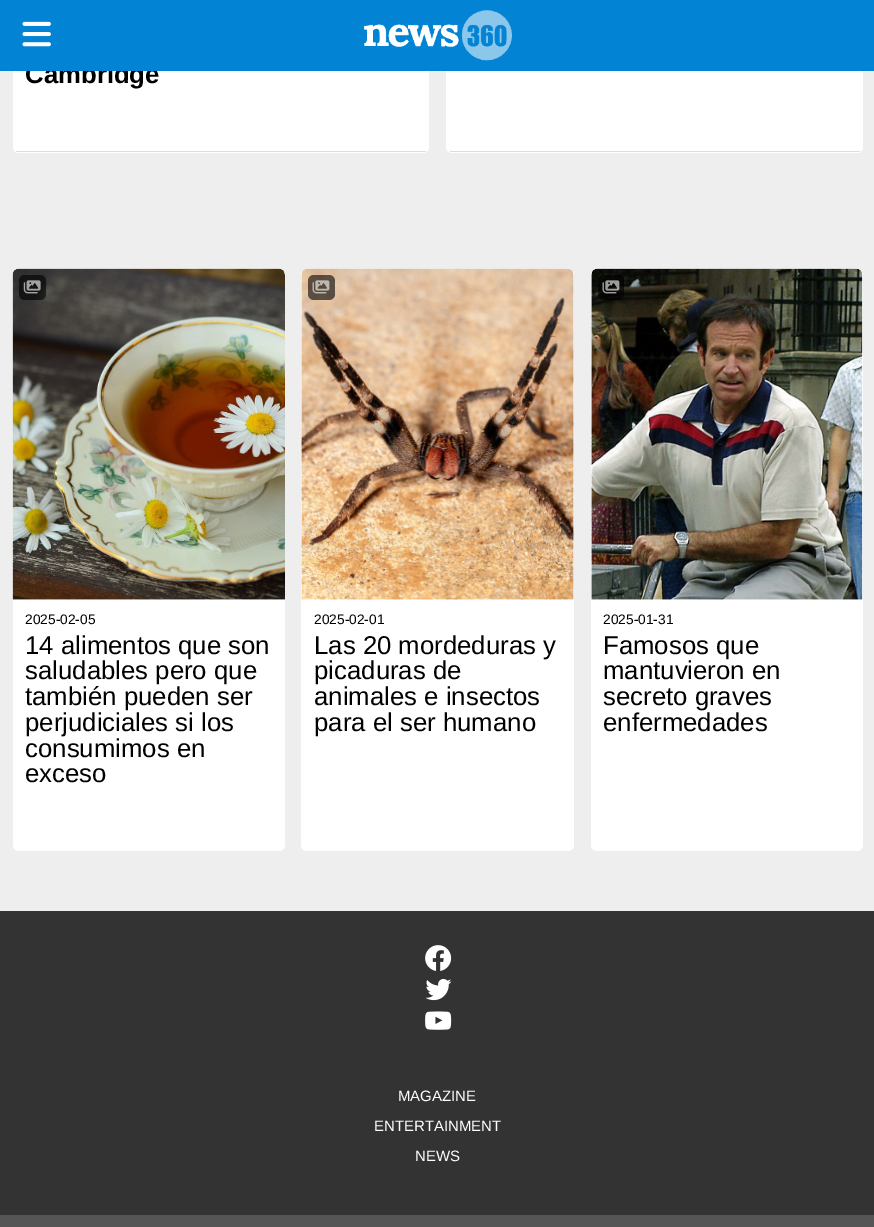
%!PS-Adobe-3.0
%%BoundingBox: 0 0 874 1227
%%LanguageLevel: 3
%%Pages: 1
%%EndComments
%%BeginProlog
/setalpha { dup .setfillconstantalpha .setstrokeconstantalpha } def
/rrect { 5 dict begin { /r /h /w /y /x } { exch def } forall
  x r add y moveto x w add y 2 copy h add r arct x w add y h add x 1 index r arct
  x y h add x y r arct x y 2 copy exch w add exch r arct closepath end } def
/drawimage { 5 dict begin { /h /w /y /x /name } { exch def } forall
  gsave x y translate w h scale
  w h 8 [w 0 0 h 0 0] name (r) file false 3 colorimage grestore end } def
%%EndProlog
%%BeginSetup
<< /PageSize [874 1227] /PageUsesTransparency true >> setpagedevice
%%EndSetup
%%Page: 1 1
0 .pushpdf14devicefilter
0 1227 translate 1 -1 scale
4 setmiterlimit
0.933 setgray
0 0 874 1227 rectfill
1 setgray
13 -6 416 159 6 rrect fill
0.867 setgray
16 151 410 1 rectfill
1 setgray
446 -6 417 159 6 rrect fill
0.867 setgray
450 151 410 1 rectfill
1 setgray
13 269 272 582 6 rrect fill
newpath 19 269 moveto 279 269 lineto 282.5 269 285 271.5 285 275 curveto 285 600 lineto 13 600 lineto 13 275 lineto 13 271.5 15.5 269 19 269 curveto closepath fill
(images/3.raw) 12 268 273 332 drawimage
0.6 setalpha
0 setgray
19 275 27 25 6 rrect fill
1 setalpha
(images/4.raw) 23 280 18 14 drawimage
1 setgray
301 269 273 582 6 rrect fill
newpath 307 269 moveto 568 269 lineto 571.5 269 574 271.5 574 275 curveto 574 600 lineto 301 600 lineto 301 275 lineto 301 271.5 303.5 269 307 269 curveto closepath fill
(images/5.raw) 301 268 273 332 drawimage
0.6 setalpha
0 setgray
308 275 27 25 6 rrect fill
1 setalpha
(images/6.raw) 312 280 18 14 drawimage
1 setgray
591 269 272 582 6 rrect fill
newpath 597 269 moveto 857 269 lineto 860.5 269 863 271.5 863 275 curveto 863 600 lineto 591 600 lineto 591 275 lineto 591 271.5 593.5 269 597 269 curveto closepath fill
(images/7.raw) 591 268 272 332 drawimage
0.6 setalpha
0 setgray
598 275 26 25 6 rrect fill
1 setalpha
(images/8.raw) 602 280 18 14 drawimage
0.333 setgray
0 1215 874 12 rectfill
0.2 setgray
0 911 874 304 rectfill
(images/9.raw) 425 945 27 26 drawimage
(images/10.raw) 425 979 27 22 drawimage
(images/11.raw) 425 1011 27 19 drawimage
/LiberationSans-Bold [25.75 0 0 -25.75 0 0] selectfont
0 setgray
25 83 moveto (Cambridge) show
0.008 0.514 0.831 setrgbcolor
0 0 874 71 rectfill
(images/2.raw) 363 10 150 51 drawimage
(images/1.raw) 22 21 29 26 drawimage
/LiberationSans-Regular [13.75 0 0 -13.75 0 0] selectfont
0 setgray
25 624 moveto (2025-02-05) show
/LiberationSans-Regular [25.75 0 0 -25.75 0 0] selectfont
25 654 moveto (14 alimentos que son) show
25 679 moveto (saludables pero que) show
25 705 moveto (también pueden ser) show
25 731 moveto (perjudiciales si los) show
25 757 moveto (consumimos en) show
25 782 moveto (exceso) show
/LiberationSans-Regular [13.75 0 0 -13.75 0 0] selectfont
314 624 moveto (2025-02-01) show
/LiberationSans-Regular [25.75 0 0 -25.75 0 0] selectfont
314 654 moveto (Las 20 mordeduras y) show
314 679 moveto (picaduras de) show
314 705 moveto (animales e insectos) show
314 731 moveto (para el ser humano) show
/LiberationSans-Regular [13.75 0 0 -13.75 0 0] selectfont
603 624 moveto (2025-01-31) show
/LiberationSans-Regular [25.75 0 0 -25.75 0 0] selectfont
603 654 moveto (Famosos que) show
603 679 moveto (mantuvieron en) show
603 705 moveto (secreto graves) show
603 731 moveto (enfermedades) show
/LiberationSans-Regular [15 0 0 -15 0 0] selectfont
1 setgray
398 1101 moveto (MAGAZINE) show
374 1131 moveto (ENTERTAINMENT) show
415 1161 moveto (NEWS) show
.poppdf14devicefilter showpage
%%EOF
